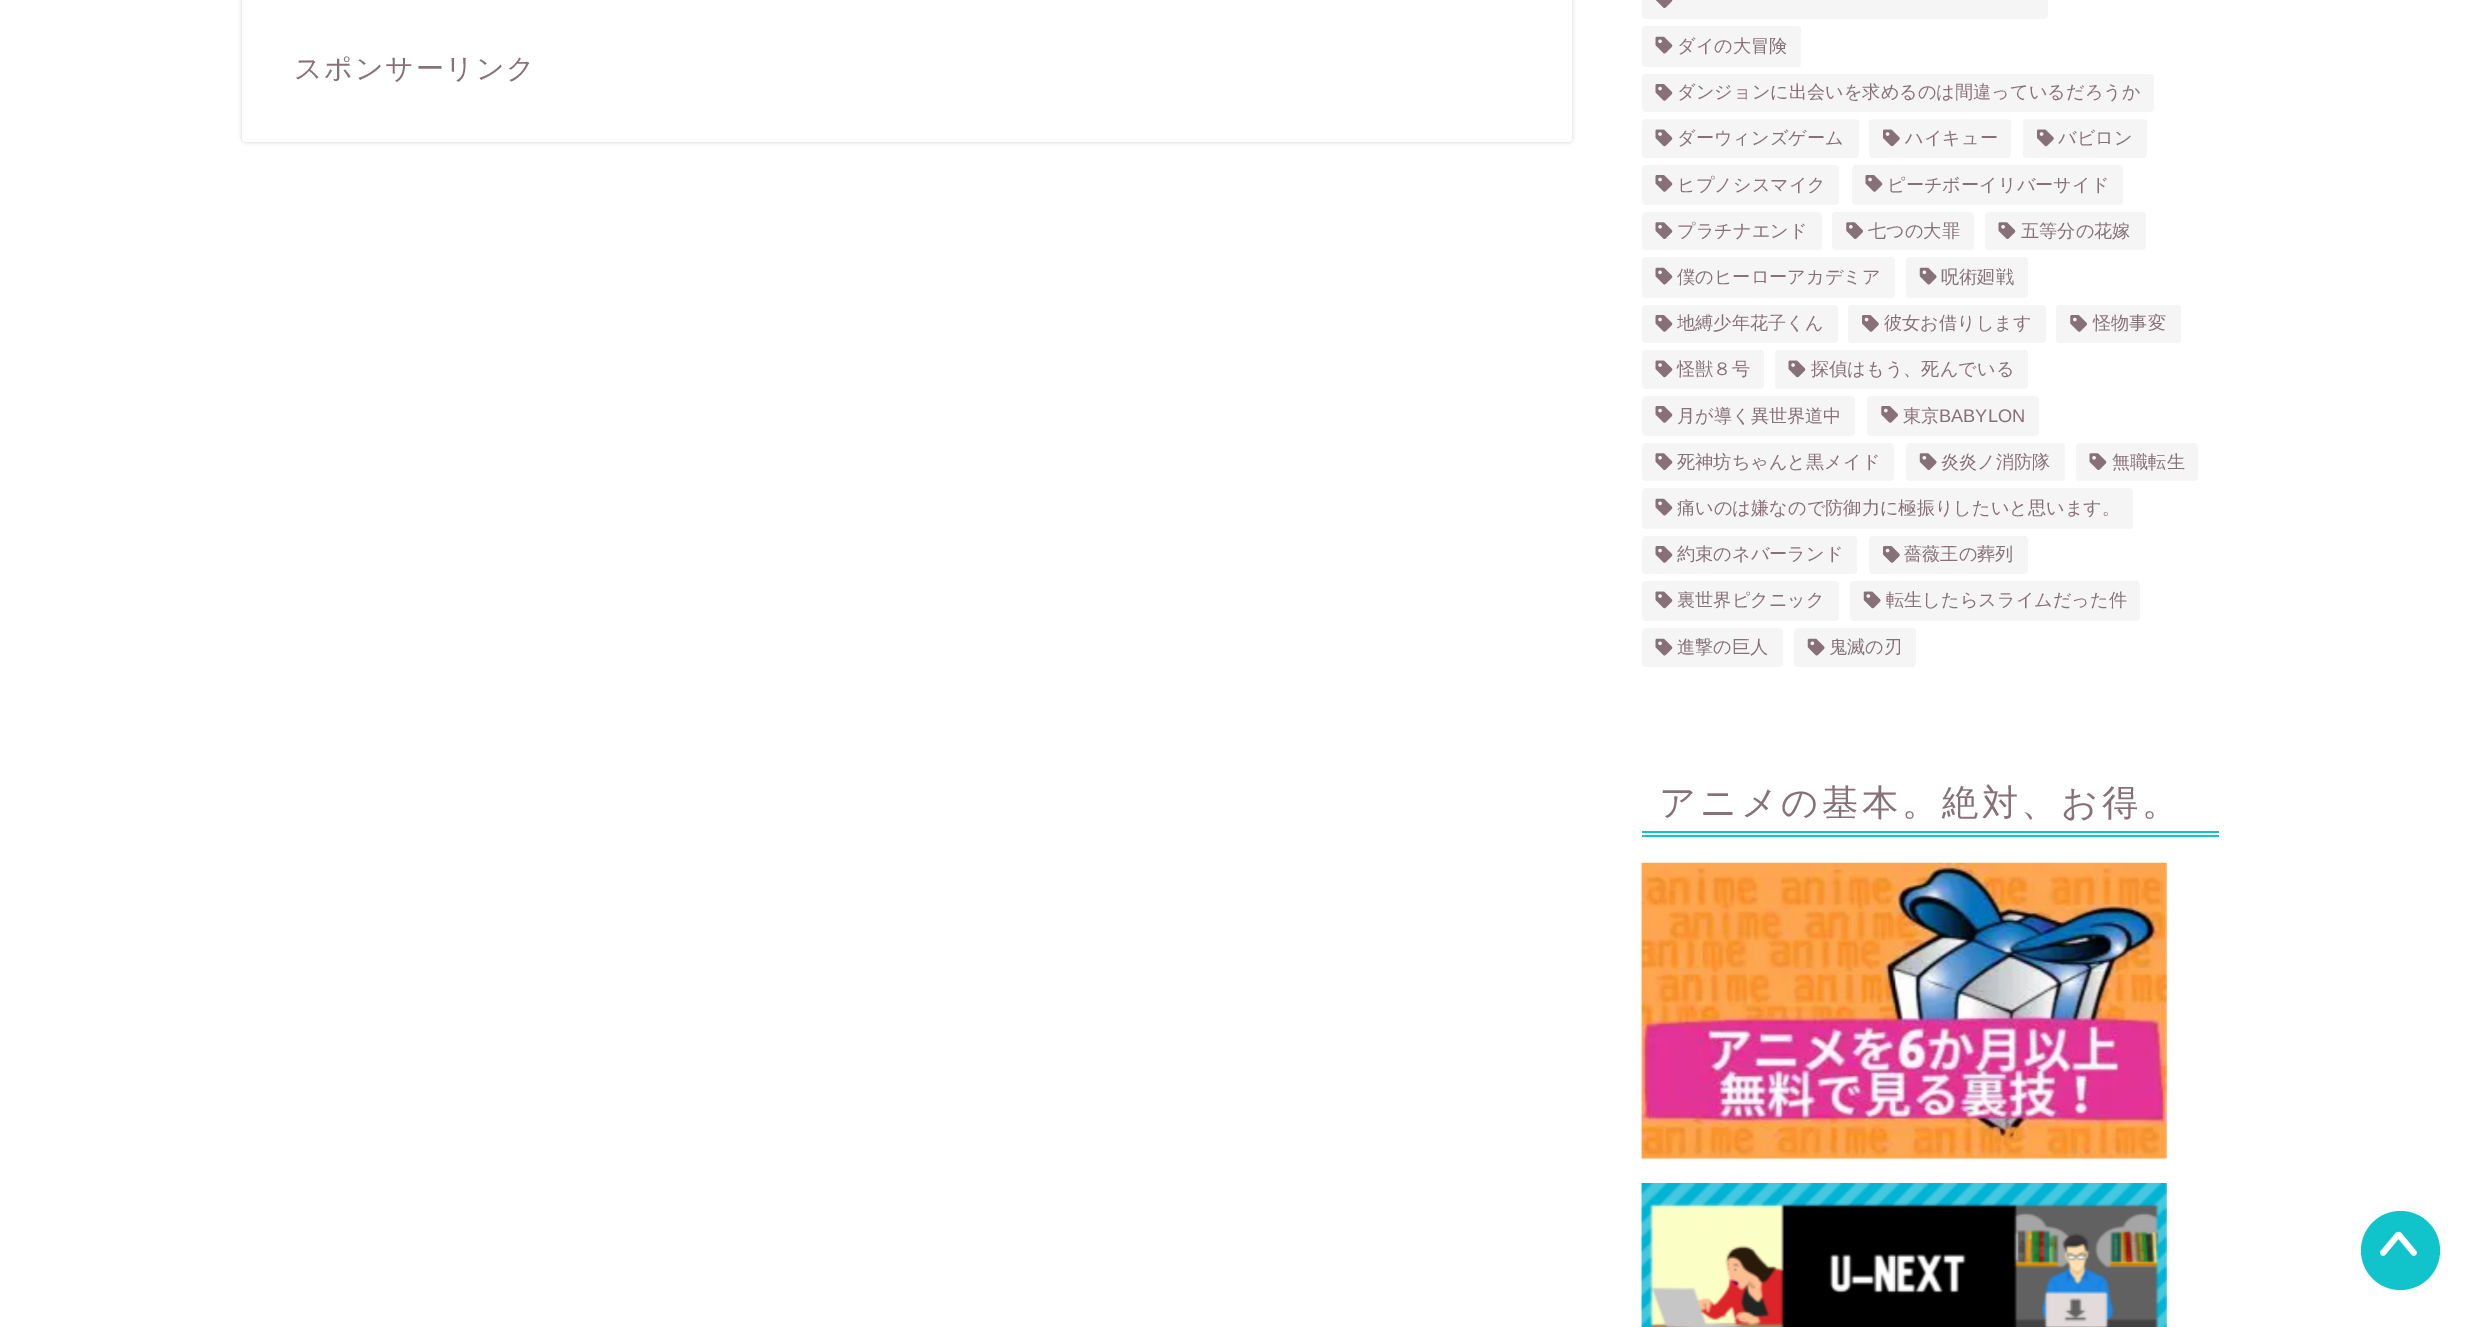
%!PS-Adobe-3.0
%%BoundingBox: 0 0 2477 1327
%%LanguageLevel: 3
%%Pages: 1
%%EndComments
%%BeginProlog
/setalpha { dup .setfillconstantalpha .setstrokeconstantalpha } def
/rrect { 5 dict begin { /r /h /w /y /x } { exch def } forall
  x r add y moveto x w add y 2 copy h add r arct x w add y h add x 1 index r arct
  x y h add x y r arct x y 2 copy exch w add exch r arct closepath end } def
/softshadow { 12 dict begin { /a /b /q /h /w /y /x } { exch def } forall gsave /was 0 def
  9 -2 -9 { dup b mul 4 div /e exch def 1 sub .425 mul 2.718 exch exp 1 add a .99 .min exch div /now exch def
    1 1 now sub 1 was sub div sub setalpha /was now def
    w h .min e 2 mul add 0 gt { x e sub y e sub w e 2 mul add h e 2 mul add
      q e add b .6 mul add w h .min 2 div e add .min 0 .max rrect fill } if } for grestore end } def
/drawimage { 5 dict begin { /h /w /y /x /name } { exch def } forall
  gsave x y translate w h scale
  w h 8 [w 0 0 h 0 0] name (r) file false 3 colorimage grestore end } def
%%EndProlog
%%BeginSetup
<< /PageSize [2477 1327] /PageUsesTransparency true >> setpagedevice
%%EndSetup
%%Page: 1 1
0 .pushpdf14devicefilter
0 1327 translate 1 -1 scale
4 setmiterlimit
1 setgray
0 0 2477 1327 rectfill
0 setgray
242 -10 1330 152 4 2 0.18 softshadow
1 setgray
242 -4 1330 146 4 rrect fill
0.961 setgray
1642 -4 406 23 4 rrect fill
(images/1.raw) 1655 0 18 8 drawimage
1642 26 159 41 4 rrect fill
(images/2.raw) 1655 36 18 18 drawimage
1642 74 512 38 4 rrect fill
(images/3.raw) 1655 84 18 17 drawimage
1642 119 217 39 4 rrect fill
(images/4.raw) 1655 129 18 18 drawimage
1869 119 142 39 4 rrect fill
(images/5.raw) 1883 129 17 18 drawimage
2023 119 124 39 4 rrect fill
(images/5.raw) 2037 129 17 18 drawimage
1642 165 197 40 4 rrect fill
(images/3.raw) 1655 175 18 17 drawimage
1852 165 271 40 4 rrect fill
(images/3.raw) 1865 175 18 17 drawimage
1642 212 180 38 4 rrect fill
(images/6.raw) 1655 222 18 17 drawimage
1832 212 142 38 4 rrect fill
(images/7.raw) 1846 222 17 17 drawimage
1985 212 161 38 4 rrect fill
(images/6.raw) 1998 222 18 17 drawimage
1642 257 253 41 4 rrect fill
(images/2.raw) 1655 267 18 18 drawimage
1906 257 122 41 4 rrect fill
(images/8.raw) 1919 267 18 18 drawimage
1642 305 196 38 4 rrect fill
(images/3.raw) 1655 315 18 17 drawimage
1848 305 198 38 4 rrect fill
(images/9.raw) 1862 315 17 17 drawimage
2056 305 125 38 4 rrect fill
(images/10.raw) 2070 315 17 17 drawimage
1642 350 122 39 4 rrect fill
(images/4.raw) 1655 360 18 18 drawimage
1775 350 253 39 4 rrect fill
(images/4.raw) 1788 360 18 18 drawimage
1642 396 213 40 4 rrect fill
(images/3.raw) 1655 406 18 17 drawimage
1867 396 172 40 4 rrect fill
(images/10.raw) 1881 406 17 17 drawimage
1642 443 252 38 4 rrect fill
(images/6.raw) 1655 453 18 17 drawimage
1906 443 159 38 4 rrect fill
(images/11.raw) 1919 453 18 17 drawimage
2076 443 122 38 4 rrect fill
(images/6.raw) 2089 453 18 17 drawimage
1642 488 491 41 4 rrect fill
(images/2.raw) 1655 498 18 18 drawimage
1642 536 215 38 4 rrect fill
(images/3.raw) 1655 546 18 17 drawimage
1869 536 159 38 4 rrect fill
(images/9.raw) 1883 546 17 17 drawimage
1642 581 197 40 4 rrect fill
(images/4.raw) 1655 591 18 18 drawimage
1850 581 290 40 4 rrect fill
(images/12.raw) 1863 591 18 18 drawimage
1642 628 141 39 4 rrect fill
(images/2.raw) 1655 638 18 18 drawimage
1794 628 122 39 4 rrect fill
(images/8.raw) 1807 638 18 18 drawimage
0.067 0.769 0.796 setrgbcolor
1642 831 577 2 rectfill
1642 835 577 2 rectfill
(images/13.raw) 1640 862 527 297 drawimage
(images/14.raw) 1640 1183 527 144 drawimage
newpath 2400.5 1250.5 39.5 0 360 arc closepath fill
(images/15.raw) 2380 1231 37 25 drawimage
/WenQuanYiZenHei-Medium [28 0 0 -28 0 0] selectfont
0.529 0.443 0.475 setrgbcolor
294 78 moveto 1.75 0 (スポンサーリンク) ashow
/WenQuanYiZenHei-Medium [18.2 0 0 -18.2 0 0] selectfont
1677 52 moveto (ダイの大冒険) show
1677 98 moveto (ダンジョンに出会いを求めるのは間違っているだろうか) show
1677 144 moveto (ダーウィンズゲーム) show
1905 144 moveto (ハイキュー) show
2058 144 moveto (バビロン) show
1677 191 moveto (ヒプノシスマイク) show
1887 191 moveto (ピーチボーイリバーサイド) show
1677 237 moveto (プラチナエンド) show
1868 237 moveto (七つの大罪) show
2021 237 moveto (五等分の花嫁) show
1677 283 moveto (僕のヒーローアカデミア) show
1941 283 moveto (呪術廻戦) show
1677 329 moveto (地縛少年花子くん) show
1884 329 moveto (彼女お借りします) show
2093 329 moveto (怪物事変) show
1677 375 moveto (怪獣８号) show
1811 375 moveto (探偵はもう、死んでいる) show
1677 422 moveto (月が導く異世界道中) show
1903 422 moveto (東京) show
/LiberationSans-Regular [18.2 0 0 -18.2 0 0] selectfont
1939 422 moveto (BABYLON) show
/WenQuanYiZenHei-Medium [18.2 0 0 -18.2 0 0] selectfont
1677 468 moveto (死神坊ちゃんと黒メイド) show
1941 468 moveto (炎炎ノ消防隊) show
2112 468 moveto (無職転生) show
1677 514 moveto (痛いのは嫌なので防御力に極振りしたいと思います。) show
1677 560 moveto (約束のネバーランド) show
1904 560 moveto (薔薇王の葬列) show
1677 606 moveto (裏世界ピクニック) show
1886 606 moveto (転生したらスライムだった件) show
1677 653 moveto (進撃の巨人) show
1829 653 moveto (鬼滅の刃) show
/WenQuanYiZenHei-Medium [36.4 0 0 -36.4 0 0] selectfont
1659 815 moveto 3.5 0 (アニメの基本。絶対、お得。) ashow
.poppdf14devicefilter showpage
%%EOF
